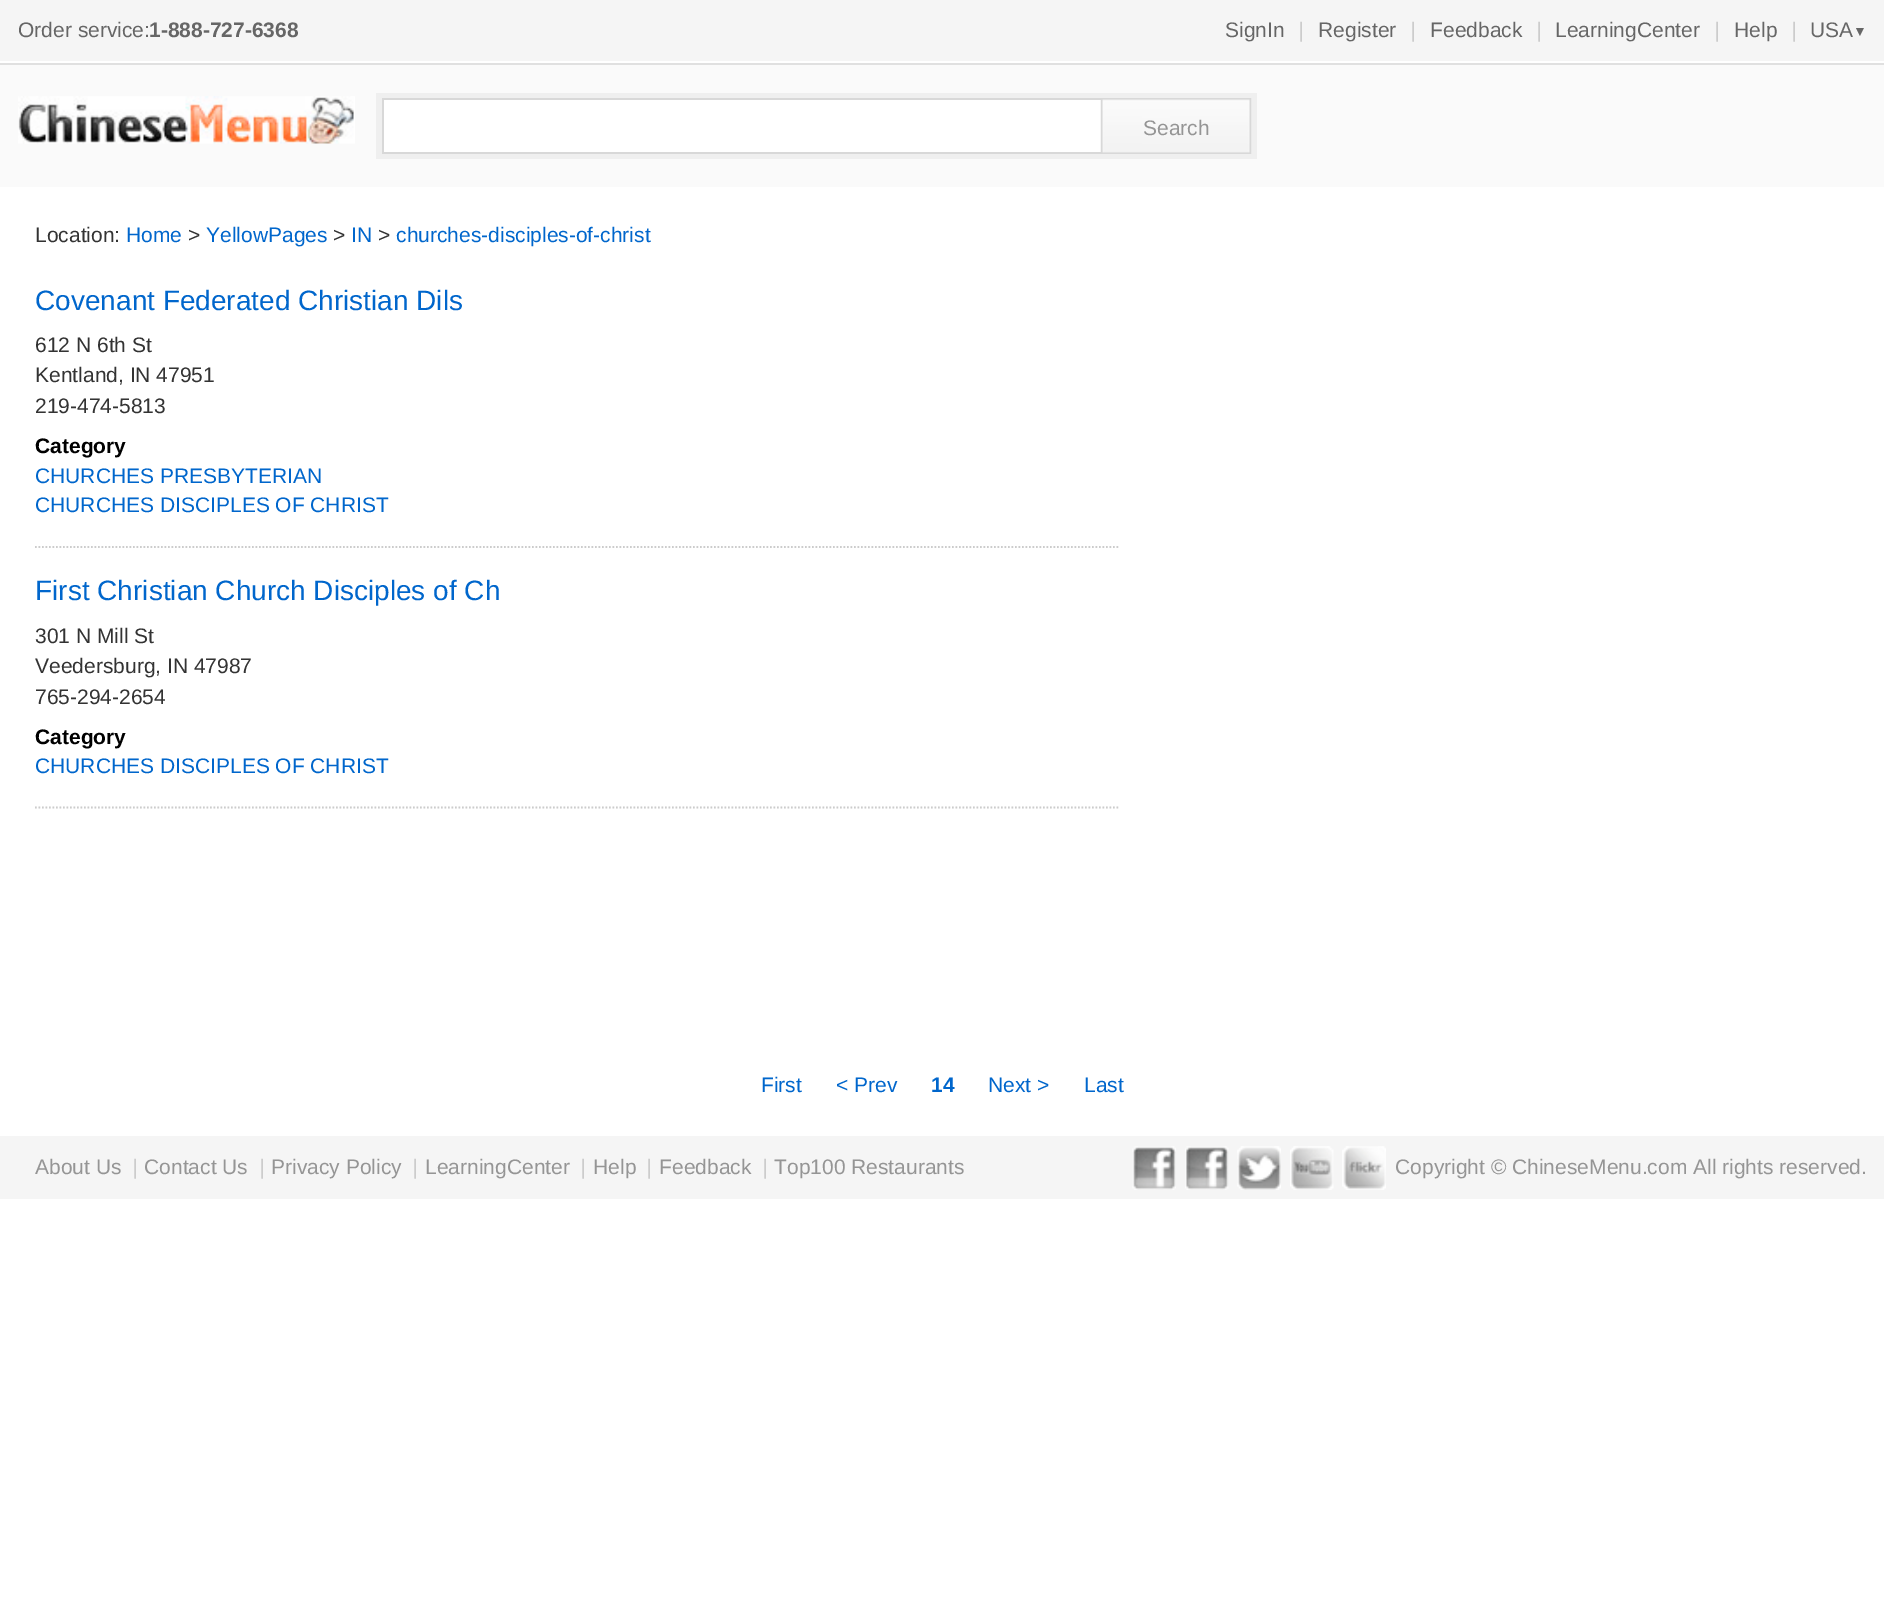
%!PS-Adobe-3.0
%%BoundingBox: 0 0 1884 1605
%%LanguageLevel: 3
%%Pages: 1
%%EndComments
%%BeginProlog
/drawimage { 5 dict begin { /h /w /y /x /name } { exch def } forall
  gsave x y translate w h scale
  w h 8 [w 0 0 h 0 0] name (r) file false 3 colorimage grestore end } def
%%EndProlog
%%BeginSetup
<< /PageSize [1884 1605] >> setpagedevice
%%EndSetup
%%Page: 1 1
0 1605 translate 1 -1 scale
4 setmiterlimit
1 setgray
0 0 1884 1605 rectfill
0.961 setgray
0 0 1884 61 rectfill
0.98 setgray
0 65 1884 122 rectfill
0.878 setgray
0 63 1884 2 rectfill
(images/1.raw) 18 96 337 48 drawimage
0.937 setgray
376 93 881 66 rectfill
1 setgray
384 100 717 52 rectfill
0.847 setgray
382 98 719 2 rectfill
382 152 719 2 rectfill
382 98 2 56 rectfill
(images/2.raw) 1100 98 152 56 drawimage
0.8 setgray
1.8 setlinewidth
[1.75 1.75] 0 setdash
newpath 35 547 moveto 1120 547 lineto stroke
newpath 35 807.5 moveto 1120 807.5 lineto stroke
0.961 setgray
0 1136 1884 63 rectfill
(images/3.raw) 1132 1146 44 44 drawimage
(images/4.raw) 1185 1146 44 44 drawimage
(images/5.raw) 1237 1146 44 44 drawimage
(images/6.raw) 1290 1146 44 44 drawimage
(images/7.raw) 1342 1146 44 44 drawimage
/LiberationSans-Regular [21 0 0 -21 0 0] selectfont
0.4 setgray
18 37 moveto (Order service:) show
/LiberationSans-Bold [21 0 0 -21 0 0] selectfont
149 37 moveto (1-888-727-6368) show
/LiberationSans-Regular [21 0 0 -21 0 0] selectfont
1225 37 moveto (SignIn) show
/LiberationSans-Italic [21 0 0 -21 0 0] selectfont
0.8 setgray
1298 37 moveto (|) show
/LiberationSans-Regular [21 0 0 -21 0 0] selectfont
0.4 setgray
1318 37 moveto (Register) show
/LiberationSans-Italic [21 0 0 -21 0 0] selectfont
0.8 setgray
1410 37 moveto (|) show
/LiberationSans-Regular [21 0 0 -21 0 0] selectfont
0.4 setgray
1430 37 moveto (Feedback) show
/LiberationSans-Italic [21 0 0 -21 0 0] selectfont
0.8 setgray
1536 37 moveto (|) show
/LiberationSans-Regular [21 0 0 -21 0 0] selectfont
0.4 setgray
1555 37 moveto (LearningCenter) show
/LiberationSans-Italic [21 0 0 -21 0 0] selectfont
0.8 setgray
1714 37 moveto (|) show
/LiberationSans-Regular [21 0 0 -21 0 0] selectfont
0.4 setgray
1734 37 moveto (Help) show
/LiberationSans-Italic [21 0 0 -21 0 0] selectfont
0.8 setgray
1791 37 moveto (|) show
/LiberationSans-Regular [21 0 0 -21 0 0] selectfont
0.4 setgray
1810 37 moveto (USA) show
/LiberationSans-Regular [14 0 0 -14 0 0] selectfont
1853 36 moveto (▼) show
/LiberationSans-Regular [21 0 0 -21 0 0] selectfont
0.584 setgray
1143 135 moveto (Search) show
0.2 setgray
35 242 moveto (Location:) show
0 0.4 0.8 setrgbcolor
126 242 moveto (Home) show
0.2 setgray
188 242 moveto (>) show
0 0.4 0.8 setrgbcolor
206 242 moveto (YellowPages) show
0.2 setgray
333 242 moveto (>) show
0 0.4 0.8 setrgbcolor
351 242 moveto (IN) show
0.2 setgray
378 242 moveto (>) show
0 0.4 0.8 setrgbcolor
396 242 moveto (churches-disciples-of-christ) show
/LiberationSans-Regular [28 0 0 -28 0 0] selectfont
35 310 moveto (Covenant Federated Christian Dils) show
/LiberationSans-Regular [21 0 0 -21 0 0] selectfont
0.2 setgray
35 352 moveto (612 N 6th St) show
35 382 moveto (Kentland, IN 47951) show
35 413 moveto (219-474-5813) show
/LiberationSans-Bold [21 0 0 -21 0 0] selectfont
0 setgray
35 453 moveto (Category) show
/LiberationSans-Regular [21 0 0 -21 0 0] selectfont
0 0.4 0.8 setrgbcolor
35 483 moveto (CHURCHES PRESBYTERIAN) show
35 512 moveto (CHURCHES DISCIPLES OF CHRIST) show
/LiberationSans-Regular [28 0 0 -28 0 0] selectfont
35 600 moveto (First Christian Church Disciples of Ch) show
/LiberationSans-Regular [21 0 0 -21 0 0] selectfont
0.2 setgray
35 643 moveto (301 N Mill St) show
35 673 moveto (Veedersburg, IN 47987) show
35 704 moveto (765-294-2654) show
/LiberationSans-Bold [21 0 0 -21 0 0] selectfont
0 setgray
35 744 moveto (Category) show
/LiberationSans-Regular [21 0 0 -21 0 0] selectfont
0 0.4 0.8 setrgbcolor
35 773 moveto (CHURCHES DISCIPLES OF CHRIST) show
761 1092 moveto (First) show
836 1092 moveto (< Prev) show
/LiberationSans-Bold [21 0 0 -21 0 0] selectfont
931 1092 moveto (14) show
/LiberationSans-Regular [21 0 0 -21 0 0] selectfont
988 1092 moveto (Next >) show
1084 1092 moveto (Last) show
0.584 setgray
35 1174 moveto (About Us) show
/LiberationSans-Italic [21 0 0 -21 0 0] selectfont
0.8 setgray
132 1174 moveto (|) show
/LiberationSans-Regular [21 0 0 -21 0 0] selectfont
0.584 setgray
144 1174 moveto (Contact Us) show
/LiberationSans-Italic [21 0 0 -21 0 0] selectfont
0.8 setgray
259 1174 moveto (|) show
/LiberationSans-Regular [21 0 0 -21 0 0] selectfont
0.584 setgray
271 1174 moveto (Privacy Policy) show
/LiberationSans-Italic [21 0 0 -21 0 0] selectfont
0.8 setgray
412 1174 moveto (|) show
/LiberationSans-Regular [21 0 0 -21 0 0] selectfont
0.584 setgray
425 1174 moveto (LearningCenter) show
/LiberationSans-Italic [21 0 0 -21 0 0] selectfont
0.8 setgray
580 1174 moveto (|) show
/LiberationSans-Regular [21 0 0 -21 0 0] selectfont
0.584 setgray
593 1174 moveto (Help) show
/LiberationSans-Italic [21 0 0 -21 0 0] selectfont
0.8 setgray
646 1174 moveto (|) show
/LiberationSans-Regular [21 0 0 -21 0 0] selectfont
0.584 setgray
659 1174 moveto (Feedback) show
/LiberationSans-Italic [21 0 0 -21 0 0] selectfont
0.8 setgray
762 1174 moveto (|) show
/LiberationSans-Regular [21 0 0 -21 0 0] selectfont
0.584 setgray
774 1174 moveto (Top100 Restaurants) show
1395 1174 moveto (Copyright © ChineseMenu.com All rights reserved.) show
showpage
%%EOF
